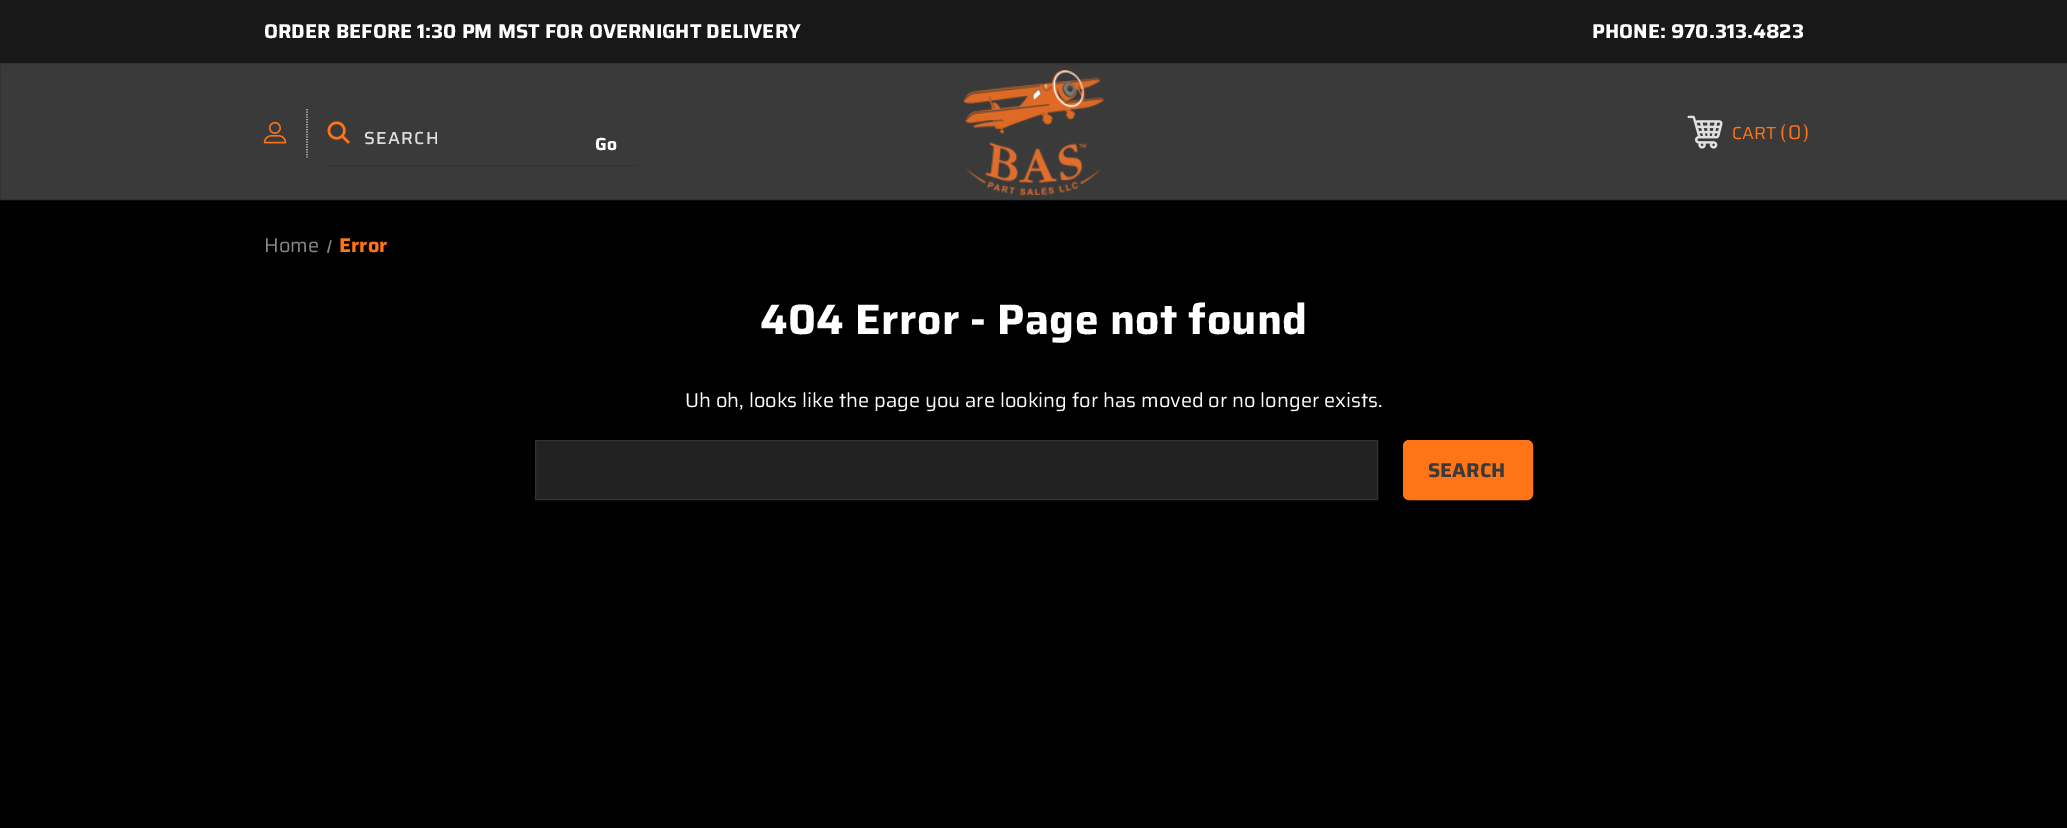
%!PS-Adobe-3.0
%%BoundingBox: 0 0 2067 828
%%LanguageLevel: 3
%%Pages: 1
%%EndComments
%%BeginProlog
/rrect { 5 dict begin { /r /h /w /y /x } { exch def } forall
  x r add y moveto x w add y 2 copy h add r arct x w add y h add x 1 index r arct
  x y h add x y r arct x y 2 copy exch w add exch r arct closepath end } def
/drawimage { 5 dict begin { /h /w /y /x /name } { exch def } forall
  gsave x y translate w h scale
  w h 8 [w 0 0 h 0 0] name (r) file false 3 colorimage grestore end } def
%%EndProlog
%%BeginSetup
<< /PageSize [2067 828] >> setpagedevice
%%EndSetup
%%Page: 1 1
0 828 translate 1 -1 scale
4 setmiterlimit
0 setgray
0 0 2067 828 rectfill
0.094 setgray
0 0 2067 63 rectfill
0.227 setgray
newpath 0.5 63.5 moveto 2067.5 63.5 lineto 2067.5 199.5 lineto 0.5 199.5 lineto closepath gsave fill grestore
0.2 setgray
stroke
(images/1.raw) 263 121 24 23 drawimage
0.8 setgray
1.2 setlinewidth
[1.25 1.25] 0 setdash
newpath 307 109 moveto 307 157.5 lineto stroke
(images/2.raw) 327 121 23 23 drawimage
0.2 setgray
326 165 313 1 rectfill
(images/3.raw) 963 70 141 125 drawimage
(images/4.raw) 1687 115 36 34 drawimage
0.533 setgray
newpath 330.5 240 moveto 331.5 240.5 lineto 328.5 253 lineto 327 252.5 lineto closepath fill
0.133 setgray
newpath 535.5 440.5 moveto 1377.5 440.5 lineto 1377.5 499.5 lineto 535.5 499.5 lineto closepath gsave fill grestore
0.2 setgray
1 setlinewidth
[] 0 setdash
stroke
1 0.455 0.09 setrgbcolor
1403.5 440.5 129 59 5.5 rrect gsave fill grestore
stroke
/Saira-Bold [20 0 0 -20 0 0] selectfont
1 setgray
264 38 moveto (ORDER BEFORE 1:30 PM MST FOR OVERNIGHT DELIVERY) show
1592 38 moveto (PHONE: 970.313.4823) show
/Saira-Medium [17.5 0 0 -17.5 0 0] selectfont
0.867 setgray
364 144 moveto 1.25 0 (SEARCH) ashow
/Saira-Bold [17.5 0 0 -17.5 0 0] selectfont
1 setgray
595 150 moveto (Go) show
/Saira-Regular [17.5 0 0 -17.5 0 0] selectfont
1 0.455 0.09 setrgbcolor
1732 139 moveto (CART) show
/Saira-Regular [20 0 0 -20 0 0] selectfont
1780 139 moveto (\() show
1788 139 moveto (0) show
1803 139 moveto (\)) show
0.533 setgray
264 252 moveto (Home) show
/Saira-Bold [20 0 0 -20 0 0] selectfont
1 0.455 0.09 setrgbcolor
339 252 moveto (Error) show
/Saira-Bold [42.5 0 0 -42.5 0 0] selectfont
1 setgray
760 334 moveto 0.3 0 (404 Error - Page not found) ashow
/Saira-Regular [20 0 0 -20 0 0] selectfont
685 407 moveto (Uh oh, looks like the page you are looking for has moved or no longer exists.) show
/Saira-Bold [20 0 0 -20 0 0] selectfont
0.227 setgray
1428 477 moveto (SEARCH) show
showpage
%%EOF
